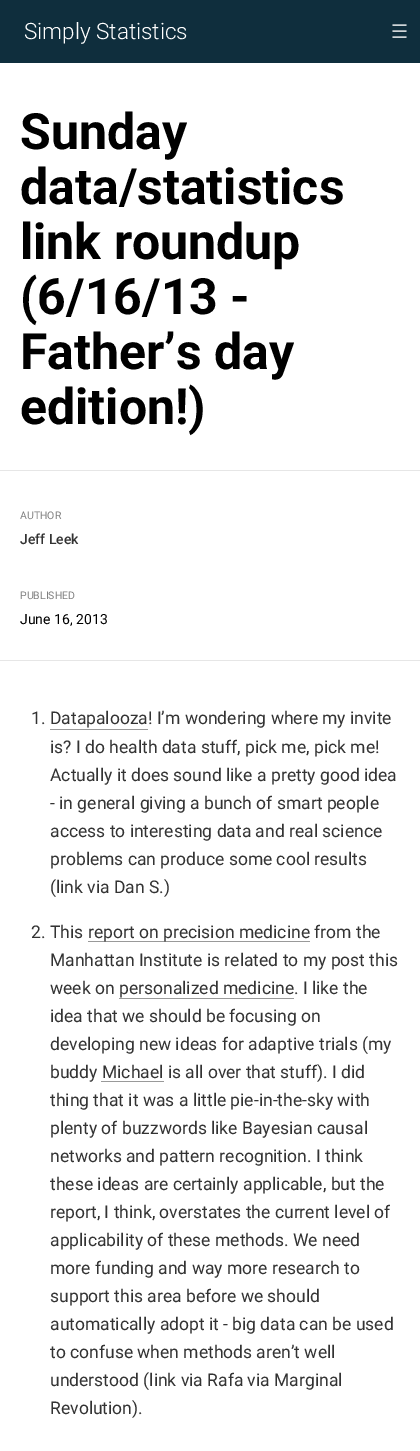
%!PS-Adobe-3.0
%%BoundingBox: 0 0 420 1451
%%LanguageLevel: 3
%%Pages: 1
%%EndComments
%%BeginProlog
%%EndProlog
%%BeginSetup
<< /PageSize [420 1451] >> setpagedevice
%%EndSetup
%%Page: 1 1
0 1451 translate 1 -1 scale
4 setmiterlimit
1 setgray
0 0 420 1451 rectfill
0.059 0.18 0.239 setrgbcolor
0 0 420 63 rectfill
0.902 setgray
0 470 420 1 rectfill
0 660 420 1 rectfill
0.6 setgray
50 729 98 1 rectfill
88 941 222 1 rectfill
119 998 175 1 rectfill
/Roboto-Light [22.5 0 0 -22.5 0 0] selectfont
1 setgray
24 39 moveto (Simply Statistics) show
/DejaVuSans-Regular [19 0 0 -19 0 0] selectfont
0.812 0.835 0.847 setrgbcolor
391 38 moveto (☰) show
/Roboto-Bold [50 0 0 -50 0 0] selectfont
0 setgray
20 149 moveto (Sunday) show
20 204 moveto (data/statistics) show
20 259 moveto (link roundup) show
20 314 moveto (\(6/16/13 -) show
20 369 moveto (Father’s day) show
20 424 moveto (edition!\)) show
/Roboto-Regular [10.5 0 0 -10.5 0 0] selectfont
0.502 setgray
20 519 moveto (AUTHOR) show
/Roboto-Medium [14 0 0 -14 0 0] selectfont
0.2 setgray
20 544 moveto (Jeff Leek) show
/Roboto-Regular [10.5 0 0 -10.5 0 0] selectfont
0.502 setgray
20 599 moveto (PUBLISHED) show
/Roboto-Regular [14 0 0 -14 0 0] selectfont
0 setgray
20 624 moveto (June 16, 2013) show
/Roboto-Regular [17.5 0 0 -17.5 0 0] selectfont
0.2 setgray
31 724 moveto (1. Datapalooza! I’m wondering where my invite) show
50 753 moveto (is? I do health data stuff, pick me, pick me!) show
50 781 moveto (Actually it does sound like a pretty good idea) show
50 809 moveto (- in general giving a bunch of smart people) show
50 837 moveto (access to interesting data and real science) show
50 865 moveto (problems can produce some cool results) show
50 893 moveto (\(link via Dan S.\)) show
31 938 moveto (2. This) show
88 938 moveto (report on precision medicine from the) show
50 966 moveto (Manhattan Institute is related to my post this) show
50 994 moveto (week on personalized medicine. I like the) show
50 1022 moveto (idea that we should be focusing on) show
50 1050 moveto (developing new ideas for adaptive trials \(my) show
50 1078 moveto (buddy Michael is all over that stuff\). I did) show
0.6 setgray
101 1081 63 1 rectfill
0.2 setgray
50 1106 moveto (thing that it was a little pie-in-the-sky with) show
50 1134 moveto (plenty of buzzwords like Bayesian causal) show
50 1162 moveto (networks and pattern recognition. I think) show
50 1190 moveto (these ideas are certainly applicable, but the) show
50 1218 moveto (report, I think, overstates the current level of) show
50 1246 moveto (applicability of these methods. We need) show
50 1274 moveto (more funding and way more research to) show
50 1302 moveto (support this area before we should) show
50 1330 moveto (automatically adopt it - big data can be used) show
50 1358 moveto (to confuse when methods aren’t well) show
50 1386 moveto (understood \(link via Rafa via Marginal) show
50 1414 moveto (Revolution\).) show
showpage
%%EOF
